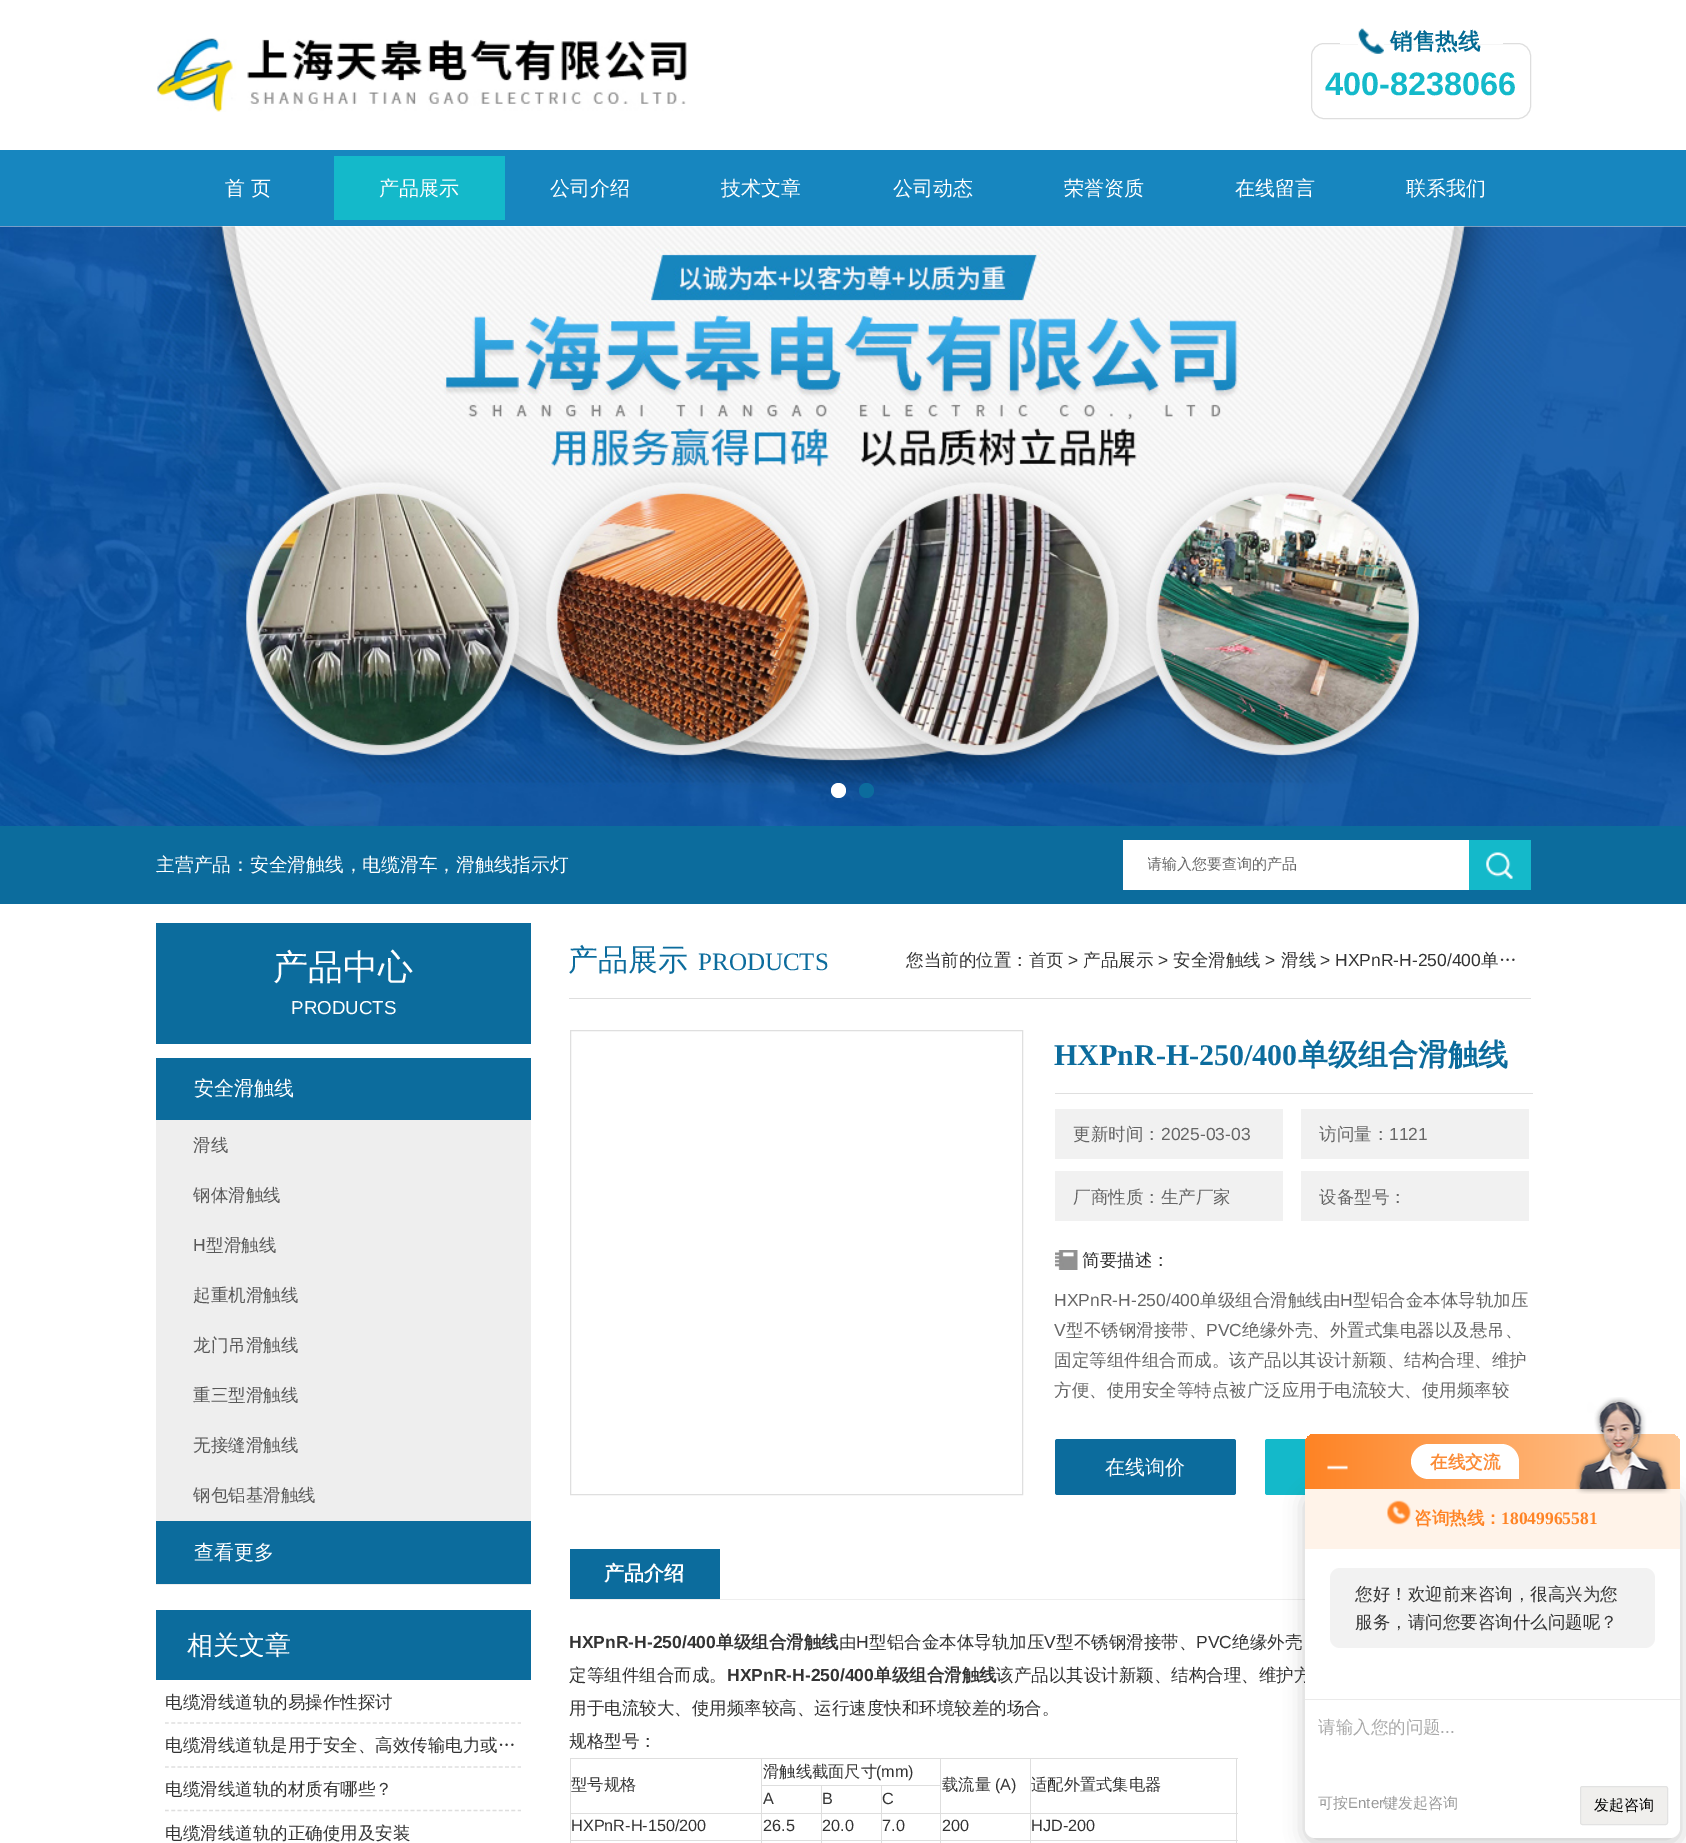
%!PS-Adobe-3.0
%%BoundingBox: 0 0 1686 1843
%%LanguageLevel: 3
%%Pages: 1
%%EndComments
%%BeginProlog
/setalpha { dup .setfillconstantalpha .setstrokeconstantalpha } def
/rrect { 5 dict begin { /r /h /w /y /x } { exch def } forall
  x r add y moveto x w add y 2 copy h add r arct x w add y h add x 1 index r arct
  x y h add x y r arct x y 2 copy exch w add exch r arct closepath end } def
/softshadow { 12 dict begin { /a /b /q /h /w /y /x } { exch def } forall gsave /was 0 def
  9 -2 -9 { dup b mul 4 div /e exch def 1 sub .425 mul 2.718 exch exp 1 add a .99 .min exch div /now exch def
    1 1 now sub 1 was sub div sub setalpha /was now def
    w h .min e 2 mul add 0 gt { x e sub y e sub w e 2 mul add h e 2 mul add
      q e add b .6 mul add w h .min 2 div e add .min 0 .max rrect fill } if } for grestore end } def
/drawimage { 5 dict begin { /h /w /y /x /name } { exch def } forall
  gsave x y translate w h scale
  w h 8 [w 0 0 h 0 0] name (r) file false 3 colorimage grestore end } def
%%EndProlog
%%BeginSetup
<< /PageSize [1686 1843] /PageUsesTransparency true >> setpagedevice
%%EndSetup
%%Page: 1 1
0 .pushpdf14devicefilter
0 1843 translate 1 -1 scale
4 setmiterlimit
1 setgray
0 0 1686 1843 rectfill
(images/1.raw) 157 38 530 74 drawimage
0.871 setgray
1311.5 43.5 219 75 12.5 rrect stroke
1 setgray
1340 43 163 1 rectfill
(images/2.raw) 1358 28 26 26 drawimage
0.09 0.525 0.749 setrgbcolor
0 150 1686 76 rectfill
0.078 0.725 0.792 setrgbcolor
334 156 171 64 rectfill
(images/3.raw) 0 226 1686 600 drawimage
1 setgray
newpath 838.5 790.5 7.5 0 360 arc closepath fill
0.047 0.424 0.616 setrgbcolor
newpath 866.5 790.5 7.5 0 360 arc closepath fill
0 826 1686 78 rectfill
1 setgray
1123 840 346 50 rectfill
0.078 0.725 0.792 setrgbcolor
1469 840 62 50 rectfill
(images/4.raw) 1486 852 27 27 drawimage
0.047 0.424 0.616 setrgbcolor
156 923 375 121 rectfill
0.933 setgray
156 1120 375 401 rectfill
0.047 0.424 0.616 setrgbcolor
156 1058 375 62 rectfill
0.933 setgray
156 1584 375 1 rectfill
0.047 0.424 0.616 setrgbcolor
156 1521 375 63 rectfill
156 1610 375 70 rectfill
0.871 setgray
1.2 setlinewidth
[3.75 2.55] 0 setdash
newpath 165 1723 moveto 521 1723 lineto stroke
newpath 165 1767 moveto 521 1767 lineto stroke
newpath 165 1810.5 moveto 521 1810.5 lineto stroke
569 998 962 1 rectfill
0.875 setgray
1 setlinewidth
[] 0 setdash
570.5 1030.5 452 464 rectstroke
1055 1093 478 1 rectfill
0.945 setgray
1055 1109 228 50 rectfill
1301 1109 228 50 rectfill
1055 1171 228 50 rectfill
1301 1171 228 50 rectfill
(images/5.raw) 1055 1250 23 20 drawimage
0.047 0.424 0.616 setrgbcolor
1055 1439 181 56 2.5 rrect fill
0.078 0.725 0.792 setrgbcolor
1265 1439 181 56 2.5 rrect fill
0.933 setgray
570 1599 735 1 rectfill
0.047 0.424 0.616 setrgbcolor
570 1549 150 50 rectfill
0.871 setgray
1030 1758 208 1 rectfill
1030 1813 208 1 rectfill
1030 1840 208 1 rectfill
1030 1840 1 3 rectfill
940 1840 91 1 rectfill
1030 1813 1 28 rectfill
940 1813 91 1 rectfill
1030 1758 1 56 rectfill
940 1758 91 1 rectfill
881 1785 60 1 rectfill
940 1840 1 3 rectfill
881 1840 60 1 rectfill
940 1813 1 28 rectfill
881 1813 60 1 rectfill
940 1758 1 56 rectfill
761 1758 180 1 rectfill
881 1840 1 3 rectfill
821 1840 62 1 rectfill
881 1813 1 28 rectfill
821 1813 62 1 rectfill
881 1785 1 29 rectfill
821 1785 62 1 rectfill
821 1840 1 3 rectfill
761 1840 62 1 rectfill
821 1813 1 28 rectfill
761 1813 62 1 rectfill
821 1785 1 29 rectfill
761 1785 62 1 rectfill
761 1840 1 3 rectfill
570 1840 193 1 rectfill
761 1813 1 28 rectfill
570 1813 193 1 rectfill
761 1785 1 29 rectfill
761 1758 1 28 rectfill
570 1758 193 1 rectfill
570 1840 1 3 rectfill
570 1813 1 28 rectfill
570 1758 1 56 rectfill
1236 1840 1 3 rectfill
1236 1813 1 28 rectfill
1236 1758 1 56 rectfill
0 setgray
1305 1494 375 349 10 10 0.2 softshadow
gsave newpath 1315 1434 moveto 1670 1434 lineto 1675.5 1434 1680 1438.5 1680 1444 curveto 1680 1489 lineto 1305 1489 lineto 1305 1444 lineto 1305 1438.5 1309.5 1434 1315 1434 curveto closepath clip newpath
<< /ShadingType 2 /ColorSpace /DeviceRGB /Coords [1305 1461 1680 1461] /Extend [true true] /Function << /FunctionType 2 /Domain [0 1] /C0 [1 0.514 0.141] /C1 [0.996 0.796 0.612] /N 1 >> >> shfill grestore
(images/6.raw) 1327 1465 21 5 drawimage
1 setgray
newpath 1428.5 1444 moveto 1501.5 1444 lineto 1511 1444 1519 1452 1519 1461.5 curveto 1519 1479 lineto 1428.5 1479 lineto 1419 1479 1411 1471 1411 1461.5 curveto 1411 1452 1419 1444 1428.5 1444 curveto closepath fill
/WenQuanYiZenHei-Bold [22.5 0 0 -22.5 0 0] selectfont
0.012 0.416 0.576 setrgbcolor
1390 49 moveto (销售热线) show
/LiberationSans-Bold [32.5 0 0 -32.5 0 0] selectfont
0.078 0.725 0.792 setrgbcolor
1325 95 moveto (400-8238066) show
/WenQuanYiZenHei-Medium [20 0 0 -20 0 0] selectfont
1 setgray
225 195 moveto (首 页) show
379 195 moveto (产品展示) show
550 195 moveto (公司介绍) show
721 195 moveto (技术文章) show
893 195 moveto (公司动态) show
1064 195 moveto (荣誉资质) show
1235 195 moveto (在线留言) show
1406 195 moveto (联系我们) show
/WenQuanYiZenHei-Medium [18.75 0 0 -18.75 0 0] selectfont
156 871 moveto (主营产品：安全滑触线，电缆滑车，滑触线指示灯) show
gsave
1148 855 317 21 rectclip
/WenQuanYiZenHei-Medium [15 0 0 -15 0 0] selectfont
0.4 setgray
1147 869 moveto (请输入您要查询的产品) show
grestore
/WenQuanYiZenHei-Medium [35 0 0 -35 0 0] selectfont
273 979 moveto (产品中心) show
/LiberationSans-Regular [18.75 0 0 -18.75 0 0] selectfont
291 1014 moveto (PRODUCTS) show
/WenQuanYiZenHei-Medium [20 0 0 -20 0 0] selectfont
194 1095 moveto (安全滑触线) show
/WenQuanYiZenHei-Medium [17.5 0 0 -17.5 0 0] selectfont
0.345 setgray
193 1151 moveto (滑线) show
193 1201 moveto (钢体滑触线) show
/LiberationSans-Regular [17.5 0 0 -17.5 0 0] selectfont
193 1251 moveto (H) show
/WenQuanYiZenHei-Medium [17.5 0 0 -17.5 0 0] selectfont
206 1251 moveto (型滑触线) show
193 1301 moveto (起重机滑触线) show
193 1351 moveto (龙门吊滑触线) show
193 1401 moveto (重三型滑触线) show
193 1451 moveto (无接缝滑触线) show
193 1501 moveto (钢包铝基滑触线) show
/WenQuanYiZenHei-Medium [20 0 0 -20 0 0] selectfont
1 setgray
194 1559 moveto (查看更多) show
/WenQuanYiZenHei-Medium [26 0 0 -26 0 0] selectfont
187 1654 moveto (相关文章) show
/WenQuanYiZenHei-Medium [17.5 0 0 -17.5 0 0] selectfont
0.2 setgray
165 1708 moveto (电缆滑线道轨的易操作性探讨) show
165 1751 moveto (电缆滑线道轨是用于安全、高效传输电力或…) show
165 1795 moveto (电缆滑线道轨的材质有哪些？) show
165 1839 moveto (电缆滑线道轨的正确使用及安装) show
/WenQuanYiZenHei-Medium [30 0 0 -30 0 0] selectfont
0.047 0.424 0.616 setrgbcolor
568 970 moveto (产品展示) show
/LiberationSerif-Regular [25 0 0 -25 0 0] selectfont
698 970 moveto (PRODUCTS) show
/WenQuanYiZenHei-Medium [17.5 0 0 -17.5 0 0] selectfont
0.2 setgray
906 966 moveto (您当前的位置：首页) show
/LiberationSans-Regular [17.5 0 0 -17.5 0 0] selectfont
1068 966 moveto (>) show
/WenQuanYiZenHei-Medium [17.5 0 0 -17.5 0 0] selectfont
1083 966 moveto (产品展示) show
/LiberationSans-Regular [17.5 0 0 -17.5 0 0] selectfont
1158 966 moveto (>) show
/WenQuanYiZenHei-Medium [17.5 0 0 -17.5 0 0] selectfont
1173 966 moveto (安全滑触线) show
/LiberationSans-Regular [17.5 0 0 -17.5 0 0] selectfont
1265 966 moveto (>) show
/WenQuanYiZenHei-Medium [17.5 0 0 -17.5 0 0] selectfont
1281 966 moveto (滑线) show
/LiberationSans-Regular [17.5 0 0 -17.5 0 0] selectfont
1320 966 moveto (> HXPnR-H-250/400) show
/WenQuanYiZenHei-Medium [17.5 0 0 -17.5 0 0] selectfont
1481 966 moveto (单…) show
/LiberationSerif-Bold [30 0 0 -30 0 0] selectfont
0.047 0.424 0.616 setrgbcolor
1054 1065 moveto (HXPnR-H-250/400) show
/WenQuanYiZenHei-Bold [30 0 0 -30 0 0] selectfont
1298 1065 moveto (单级组合滑触线) show
/WenQuanYiZenHei-Medium [17.5 0 0 -17.5 0 0] selectfont
0.4 setgray
1073 1140 moveto (更新时间：) show
/LiberationSans-Regular [17.5 0 0 -17.5 0 0] selectfont
1161 1140 moveto (2025-03-03) show
/WenQuanYiZenHei-Medium [17.5 0 0 -17.5 0 0] selectfont
1319 1140 moveto (访问量：) show
/LiberationSans-Regular [17.5 0 0 -17.5 0 0] selectfont
1389 1140 moveto (1121) show
/WenQuanYiZenHei-Medium [17.5 0 0 -17.5 0 0] selectfont
1073 1203 moveto (厂商性质：生产厂家) show
1319 1203 moveto (设备型号：) show
0.2 setgray
1082 1266 moveto (简要描述：) show
/LiberationSans-Regular [17.5 0 0 -17.5 0 0] selectfont
0.4 setgray
1054 1306 moveto (HXPnR-H-250/400) show
/WenQuanYiZenHei-Medium [17.5 0 0 -17.5 0 0] selectfont
1200 1306 moveto (单级组合滑触线由) show
/LiberationSans-Regular [17.5 0 0 -17.5 0 0] selectfont
1340 1306 moveto (H) show
/WenQuanYiZenHei-Medium [17.5 0 0 -17.5 0 0] selectfont
1353 1306 moveto (型铝合金本体导轨加压) show
/LiberationSans-Regular [17.5 0 0 -17.5 0 0] selectfont
1054 1336 moveto (V) show
/WenQuanYiZenHei-Medium [17.5 0 0 -17.5 0 0] selectfont
1066 1336 moveto (型不锈钢滑接带、) show
/LiberationSans-Regular [17.5 0 0 -17.5 0 0] selectfont
1206 1336 moveto (PVC) show
/WenQuanYiZenHei-Medium [17.5 0 0 -17.5 0 0] selectfont
1242 1336 moveto (绝缘外壳、外置式集电器以及悬吊、) show
1054 1366 moveto (固定等组件组合而成。该产品以其设计新颖、结构合理、维护) show
1054 1396 moveto (方便、使用安全等特点被广泛应用于电流较大、使用频率较) show
/WenQuanYiZenHei-Medium [20 0 0 -20 0 0] selectfont
1 setgray
1105 1474 moveto (在线询价) show
/WenQuanYiZenHei-Bold [20 0 0 -20 0 0] selectfont
604 1580 moveto (产品介绍) show
/LiberationSans-Bold [17.5 0 0 -17.5 0 0] selectfont
0.2 setgray
569 1648 moveto (HXPnR-H-250/400) show
/WenQuanYiZenHei-Bold [17.5 0 0 -17.5 0 0] selectfont
716 1648 moveto (单级组合滑触线) show
/WenQuanYiZenHei-Medium [17.5 0 0 -17.5 0 0] selectfont
839 1648 moveto (由) show
/LiberationSans-Regular [17.5 0 0 -17.5 0 0] selectfont
856 1648 moveto (H) show
/WenQuanYiZenHei-Medium [17.5 0 0 -17.5 0 0] selectfont
869 1648 moveto (型铝合金本体导轨加压) show
/LiberationSans-Regular [17.5 0 0 -17.5 0 0] selectfont
1044 1648 moveto (V) show
/WenQuanYiZenHei-Medium [17.5 0 0 -17.5 0 0] selectfont
1056 1648 moveto (型不锈钢滑接带、) show
/LiberationSans-Regular [17.5 0 0 -17.5 0 0] selectfont
1196 1648 moveto (PVC) show
/WenQuanYiZenHei-Medium [17.5 0 0 -17.5 0 0] selectfont
1232 1648 moveto (绝缘外壳) show
569 1681 moveto (定等组件组合而成。) show
/LiberationSans-Bold [17.5 0 0 -17.5 0 0] selectfont
727 1681 moveto (HXPnR-H-250/400) show
/WenQuanYiZenHei-Bold [17.5 0 0 -17.5 0 0] selectfont
874 1681 moveto (单级组合滑触线) show
/WenQuanYiZenHei-Medium [17.5 0 0 -17.5 0 0] selectfont
996 1681 moveto (该产品以其设计新颖、结构合理、维护方) show
569 1714 moveto (用于电流较大、使用频率较高、运行速度快和环境较差的场合。) show
569 1747 moveto (规格型号：) show
/WenQuanYiZenHei-Medium [16.25 0 0 -16.25 0 0] selectfont
763 1777 moveto (滑触线截面尺寸) show
/LiberationSans-Regular [16.25 0 0 -16.25 0 0] selectfont
876 1777 moveto (\(mm\)) show
/WenQuanYiZenHei-Medium [16.25 0 0 -16.25 0 0] selectfont
571 1790 moveto (型号规格) show
942 1790 moveto (载流量) show
/LiberationSans-Regular [16.25 0 0 -16.25 0 0] selectfont
995 1790 moveto (\(A\)) show
/WenQuanYiZenHei-Medium [16.25 0 0 -16.25 0 0] selectfont
1031 1790 moveto (适配外置式集电器) show
/LiberationSans-Regular [16.25 0 0 -16.25 0 0] selectfont
763 1804 moveto (A) show
822 1804 moveto (B) show
882 1804 moveto (C) show
571 1831 moveto (HXPnR-H-150/200) show
763 1831 moveto (26.5) show
822 1831 moveto (20.0) show
882 1831 moveto (7.0) show
942 1831 moveto (200) show
1031 1831 moveto (HJD-200) show
/WenQuanYiZenHei-Bold [17.5 0 0 -17.5 0 0] selectfont
0.984 0.545 0.212 setrgbcolor
1430 1468 moveto (在线交流) show
1 setgray
newpath 1305 1489 moveto 1680 1489 lineto 1680 1828 lineto 1680 1833.5 1675.5 1838 1670 1838 curveto 1315 1838 lineto 1309.5 1838 1305 1833.5 1305 1828 curveto closepath fill
1 0.953 0.914 setrgbcolor
1305 1489 375 60 rectfill
(images/7.raw) 1575 1397 96 97 drawimage
(images/8.raw) 1387 1500 24 25 drawimage
1 0.518 0.149 setrgbcolor
1414 1524 moveto (咨询热线：) show
/LiberationSerif-Bold [17.5 0 0 -17.5 0 0] selectfont
1501 1524 moveto (18049965581) show
0.949 setgray
1330 1568 325 80 10 rrect fill
/WenQuanYiZenHei-Medium [17.5 0 0 -17.5 0 0] selectfont
0.2 setgray
1355 1600 moveto (您好！欢迎前来咨询，很高兴为您) show
1355 1628 moveto (服务，请问您要咨询什么问题呢？) show
0.918 setgray
1305 1699 375 1 rectfill
0.667 setgray
1318 1733 moveto (请输入您的问题) show
/LiberationSans-Regular [17.5 0 0 -17.5 0 0] selectfont
1440 1733 moveto (...) show
/WenQuanYiZenHei-Medium [15 0 0 -15 0 0] selectfont
0.6 setgray
1318 1808 moveto (可按) show
/LiberationSans-Regular [15 0 0 -15 0 0] selectfont
1348 1808 moveto (Enter) show
/WenQuanYiZenHei-Medium [15 0 0 -15 0 0] selectfont
1383 1808 moveto (键发起咨询) show
0.941 0.937 0.929 setrgbcolor
1580.5 1786.5 87 38 2 rrect gsave fill grestore
0.886 setgray
stroke
0 setgray
1594 1810 moveto (发起咨询) show
.poppdf14devicefilter showpage
%%EOF
